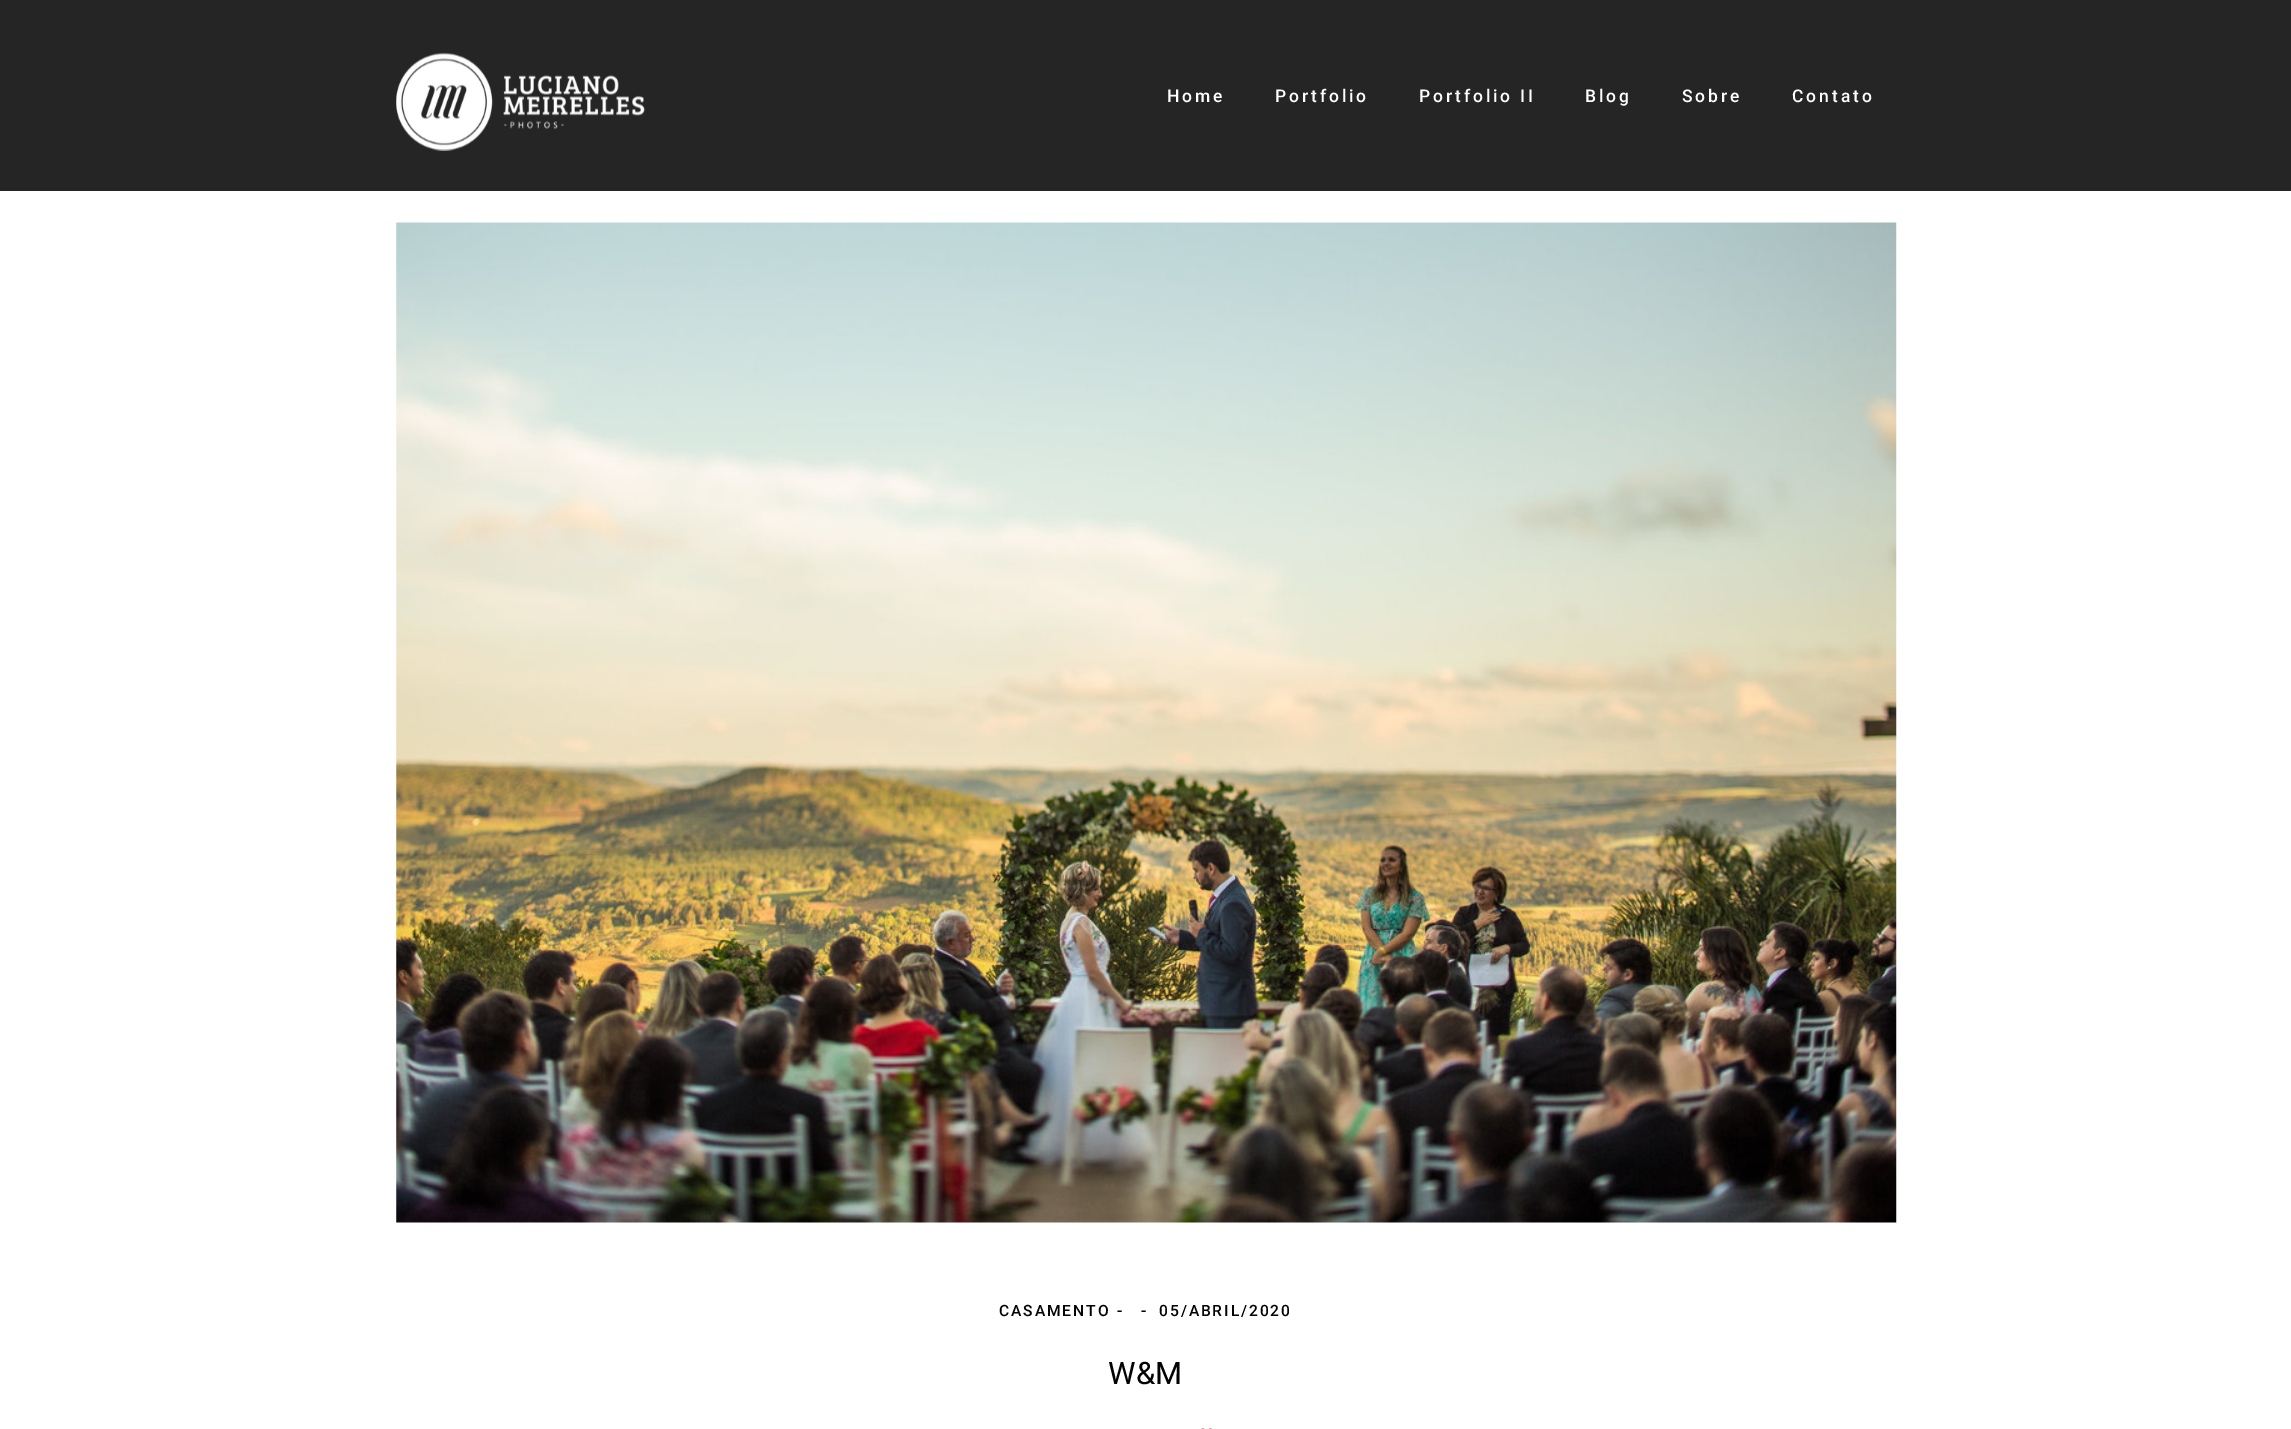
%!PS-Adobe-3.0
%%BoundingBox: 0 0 2291 1429
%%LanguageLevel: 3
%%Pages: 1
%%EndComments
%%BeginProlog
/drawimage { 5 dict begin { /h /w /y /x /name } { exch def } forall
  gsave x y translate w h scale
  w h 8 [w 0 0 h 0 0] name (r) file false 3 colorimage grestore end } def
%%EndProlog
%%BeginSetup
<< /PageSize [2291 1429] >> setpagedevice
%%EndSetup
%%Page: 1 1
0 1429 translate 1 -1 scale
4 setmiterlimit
1 setgray
0 0 2291 1429 rectfill
0.145 setgray
0 0 2291 191 rectfill
(images/1.raw) 396 52 249 99 drawimage
(images/2.raw) 396 222 1501 1001 drawimage
(images/3.raw) 1201 1428 11 1 drawimage
/Roboto-Medium [17.5 0 0 -17.5 0 0] selectfont
1 setgray
1167 102 moveto 2.9 0 (Home) ashow
1275 102 moveto 2.9 0 (Portfolio) ashow
1419 102 moveto 2.9 0 (Portfolio II) ashow
1585 102 moveto 2.9 0 (Blog) ashow
1682 102 moveto 2.9 0 (Sobre) ashow
1792 102 moveto 2.9 0 (Contato) ashow
/Roboto-Medium [15.6 0 0 -15.6 0 0] selectfont
0.012 setgray
999 1316 moveto 1.9 0 (CASAMENTO) ashow
1117 1316 moveto 1.9 0 (-) ashow
1141 1316 moveto 1.9 0 (-) ashow
1159 1316 moveto 1.9 0 (05/ABRIL/2020) ashow
/Roboto-Regular [31 0 0 -31 0 0] selectfont
1108 1384 moveto (W&M) show
showpage
%%EOF
